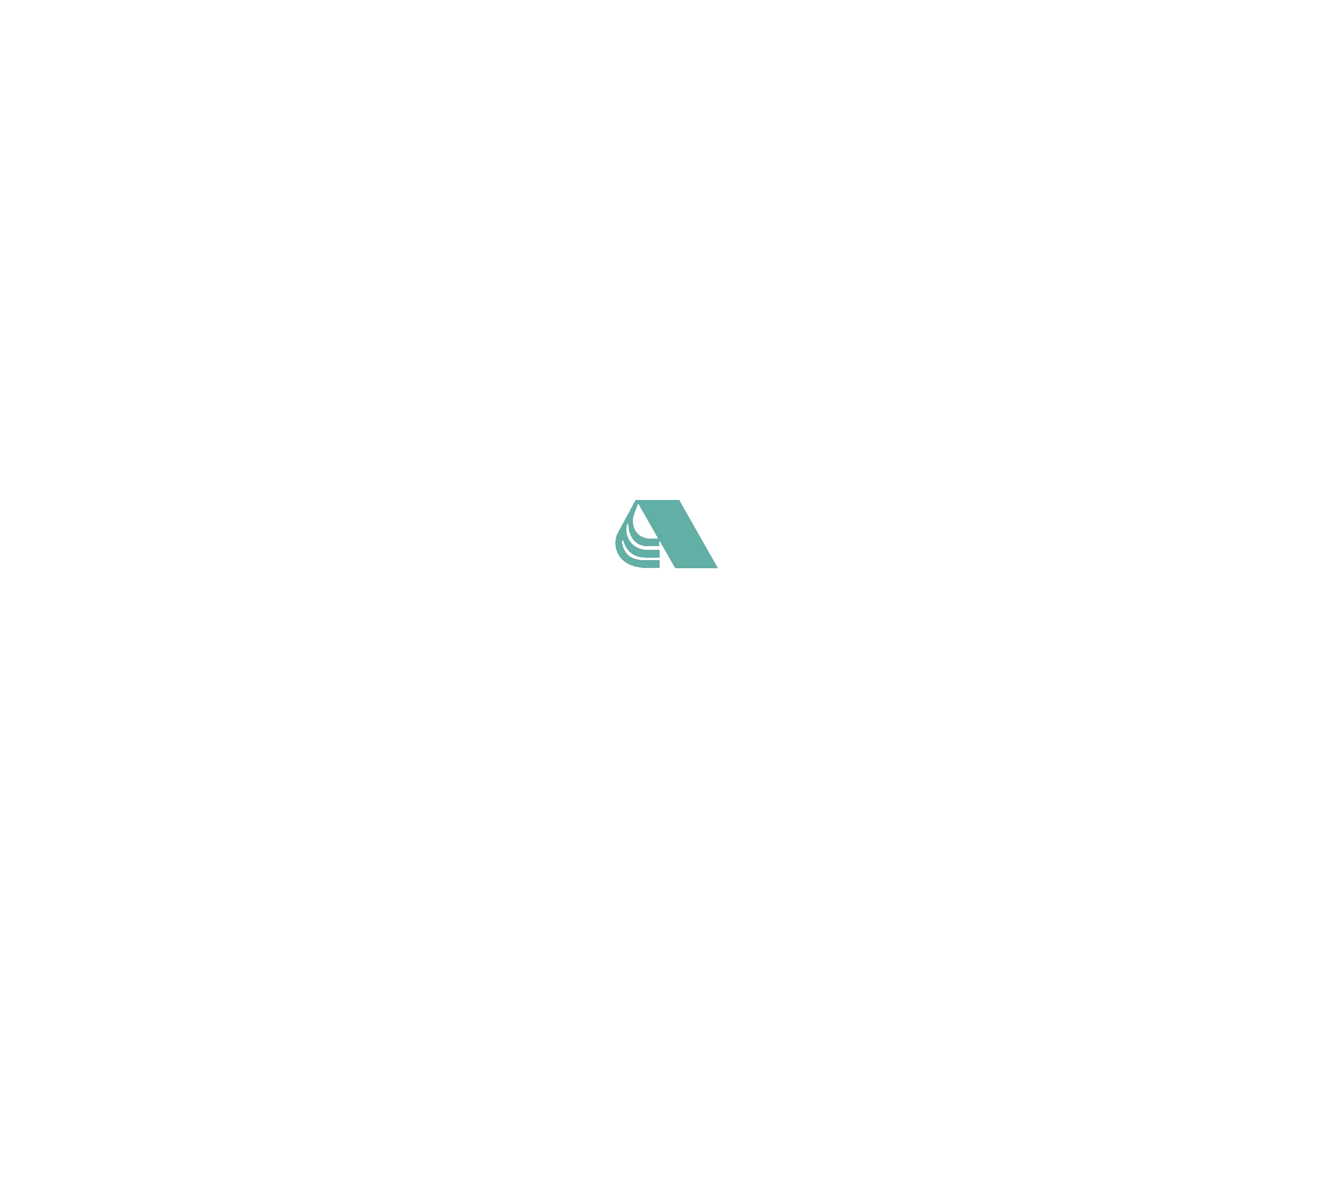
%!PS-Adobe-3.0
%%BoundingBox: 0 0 1341 1198
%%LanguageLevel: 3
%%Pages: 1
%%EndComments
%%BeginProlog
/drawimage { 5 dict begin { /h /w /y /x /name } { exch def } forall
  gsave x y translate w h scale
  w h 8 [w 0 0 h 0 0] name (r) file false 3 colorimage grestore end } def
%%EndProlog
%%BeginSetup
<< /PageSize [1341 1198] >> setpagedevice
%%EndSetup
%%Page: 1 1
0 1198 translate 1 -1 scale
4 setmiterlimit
1 setgray
0 0 1341 1198 rectfill
(images/1.raw) 615 499 104 70 drawimage
showpage
%%EOF
